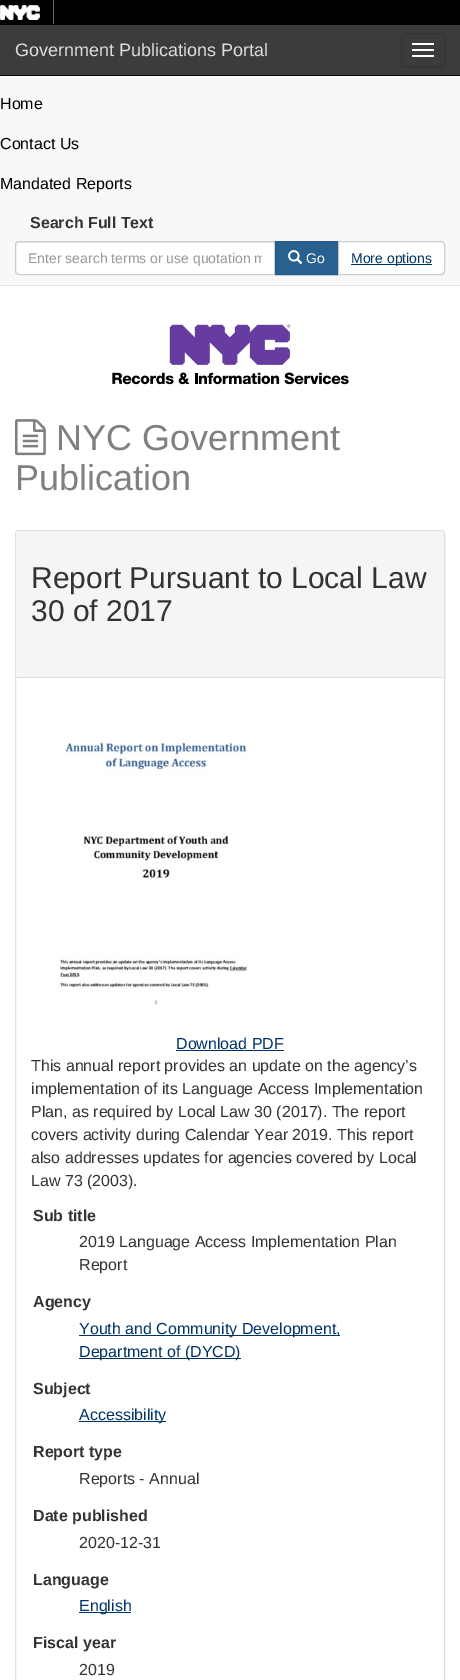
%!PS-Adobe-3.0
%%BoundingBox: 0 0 460 1680
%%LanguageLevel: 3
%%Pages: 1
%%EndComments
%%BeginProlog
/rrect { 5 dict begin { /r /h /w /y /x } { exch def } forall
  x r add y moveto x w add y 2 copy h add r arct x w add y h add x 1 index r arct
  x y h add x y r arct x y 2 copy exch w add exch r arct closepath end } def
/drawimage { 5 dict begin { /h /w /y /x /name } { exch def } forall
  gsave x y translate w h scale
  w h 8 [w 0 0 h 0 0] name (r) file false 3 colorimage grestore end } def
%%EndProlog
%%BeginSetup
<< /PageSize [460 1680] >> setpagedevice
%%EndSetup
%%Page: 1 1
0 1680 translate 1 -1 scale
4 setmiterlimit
1 setgray
0 0 460 1680 rectfill
0 setgray
0 0 460 25 rectfill
(images/1.raw) 0 5 40 15 drawimage
(images/2.raw) 53 0 1 24 drawimage
0.235 setgray
0 25 460 50 rectfill
0.035 setgray
0 75 460 1 rectfill
0.2 setgray
401.5 33.5 43 33 3.5 rrect stroke
1 setgray
412 43 22 2 1 rrect fill
412 49 22 2 1 rrect fill
412 55 22 2 1 rrect fill
0.973 setgray
0 76 460 209 rectfill
0.906 setgray
0 285 460 1 rectfill
1 setgray
newpath 19 241 moveto 275 241 lineto 275 275 lineto 19 275 lineto 17 275 15 273 15 271 curveto 15 245 lineto 15 243 17 241 19 241 curveto closepath fill
0.925 setgray
newpath 19 243 moveto 274 243 lineto 274 242 lineto 19 242 lineto 17 242 16 243 16 245 curveto 16 246 lineto 16 244 17 243 19 243 curveto closepath fill
0.8 setgray
newpath 19 241.5 moveto 274.5 241.5 lineto 274.5 274.5 lineto 19 274.5 lineto 17 274.5 15.5 273 15.5 271 curveto 15.5 245 lineto 15.5 243 17 241.5 19 241.5 curveto closepath stroke
0.157 0.376 0.565 setrgbcolor
newpath 275.5 241.5 moveto 337.5 241.5 lineto 337.5 274.5 lineto 275.5 274.5 lineto closepath gsave fill grestore
0.149 0.357 0.537 setrgbcolor
stroke
(images/3.raw) 288 250 15 14 drawimage
1 setgray
newpath 338.5 241.5 moveto 441 241.5 lineto 443 241.5 444.5 243 444.5 245 curveto 444.5 271 lineto 444.5 273 443 274.5 441 274.5 curveto 338.5 274.5 lineto closepath gsave fill grestore
0.8 setgray
stroke
0 0.2 0.4 setrgbcolor
351 264 81 1 rectfill
(images/4.raw) 112 324 237 61 drawimage
(images/5.raw) 15 419 31 37 drawimage
0.867 setgray
15.5 530.5 429 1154 3.5 rrect stroke
0.961 setgray
newpath 19 531 moveto 441 531 lineto 442.5 531 444 532.5 444 534 curveto 444 678 lineto 16 678 lineto 16 534 lineto 16 532.5 17.5 531 19 531 curveto closepath fill
0.867 setgray
16 677 428 1 rectfill
(images/6.raw) 59 742 191 263 drawimage
0 0.2 0.4 setrgbcolor
176 1050 108 1 rectfill
79 1335 261 1 rectfill
79 1358 162 1 rectfill
79 1421 87 1 rectfill
79 1612 52 1 rectfill
/LiberationSans-Regular [18 0 0 -18 0 0] selectfont
0.863 setgray
15 56 moveto (Government Publications Portal) show
/LiberationSans-Regular [16 0 0 -16 0 0] selectfont
0 setgray
0 109 moveto (Home) show
0 149 moveto (Contact Us) show
0 189 moveto (Mandated Reports) show
/LiberationSans-Bold [16 0 0 -16 0 0] selectfont
0.2 setgray
30 228 moveto (Search Full Text) show
gsave
28 250 234 16 rectclip
/LiberationSans-Regular [14 0 0 -14 0 0] selectfont
0.6 setgray
28 263 moveto (Enter search terms or use quotation m) show
grestore
/LiberationSans-Regular [14 0 0 -14 0 0] selectfont
1 setgray
306 263 moveto (Go) show
0 0.2 0.4 setrgbcolor
351 263 moveto (More options) show
/LiberationSans-Regular [36 0 0 -36 0 0] selectfont
0.502 setgray
56 450 moveto (NYC Government) show
15 490 moveto (Publication) show
/LiberationSans-Regular [30 0 0 -30 0 0] selectfont
0.2 setgray
31 588 moveto (Report Pursuant to Local Law) show
31 621 moveto (30 of 2017) show
/LiberationSans-Regular [16 0 0 -16 0 0] selectfont
0 0.2 0.4 setrgbcolor
176 1049 moveto (Download PDF) show
0.2 setgray
31 1071 moveto (This annual report provides an update on the agency’s) show
31 1094 moveto (implementation of its Language Access Implementation) show
31 1117 moveto (Plan, as required by Local Law 30 \(2017\). The report) show
31 1140 moveto (covers activity during Calendar Year 2019. This report) show
31 1163 moveto (also addresses updates for agencies covered by Local) show
31 1186 moveto (Law 73 \(2003\).) show
/LiberationSans-Bold [16 0 0 -16 0 0] selectfont
33 1221 moveto (Sub title) show
/LiberationSans-Regular [16 0 0 -16 0 0] selectfont
79 1247 moveto (2019 Language Access Implementation Plan) show
79 1270 moveto (Report) show
/LiberationSans-Bold [16 0 0 -16 0 0] selectfont
33 1307 moveto (Agency) show
/LiberationSans-Regular [16 0 0 -16 0 0] selectfont
0 0.2 0.4 setrgbcolor
79 1334 moveto (Youth and Community Development,) show
79 1357 moveto (Department of \(DYCD\)) show
/LiberationSans-Bold [16 0 0 -16 0 0] selectfont
0.2 setgray
33 1394 moveto (Subject) show
/LiberationSans-Regular [16 0 0 -16 0 0] selectfont
0 0.2 0.4 setrgbcolor
79 1420 moveto (Accessibility) show
/LiberationSans-Bold [16 0 0 -16 0 0] selectfont
0.2 setgray
33 1457 moveto (Report type) show
/LiberationSans-Regular [16 0 0 -16 0 0] selectfont
79 1484 moveto (Reports - Annual) show
/LiberationSans-Bold [16 0 0 -16 0 0] selectfont
33 1521 moveto (Date published) show
/LiberationSans-Regular [16 0 0 -16 0 0] selectfont
79 1548 moveto (2020-12-31) show
/LiberationSans-Bold [16 0 0 -16 0 0] selectfont
33 1585 moveto (Language) show
/LiberationSans-Regular [16 0 0 -16 0 0] selectfont
0 0.2 0.4 setrgbcolor
79 1611 moveto (English) show
/LiberationSans-Bold [16 0 0 -16 0 0] selectfont
0.2 setgray
33 1648 moveto (Fiscal year) show
/LiberationSans-Regular [16 0 0 -16 0 0] selectfont
79 1675 moveto (2019) show
showpage
%%EOF
